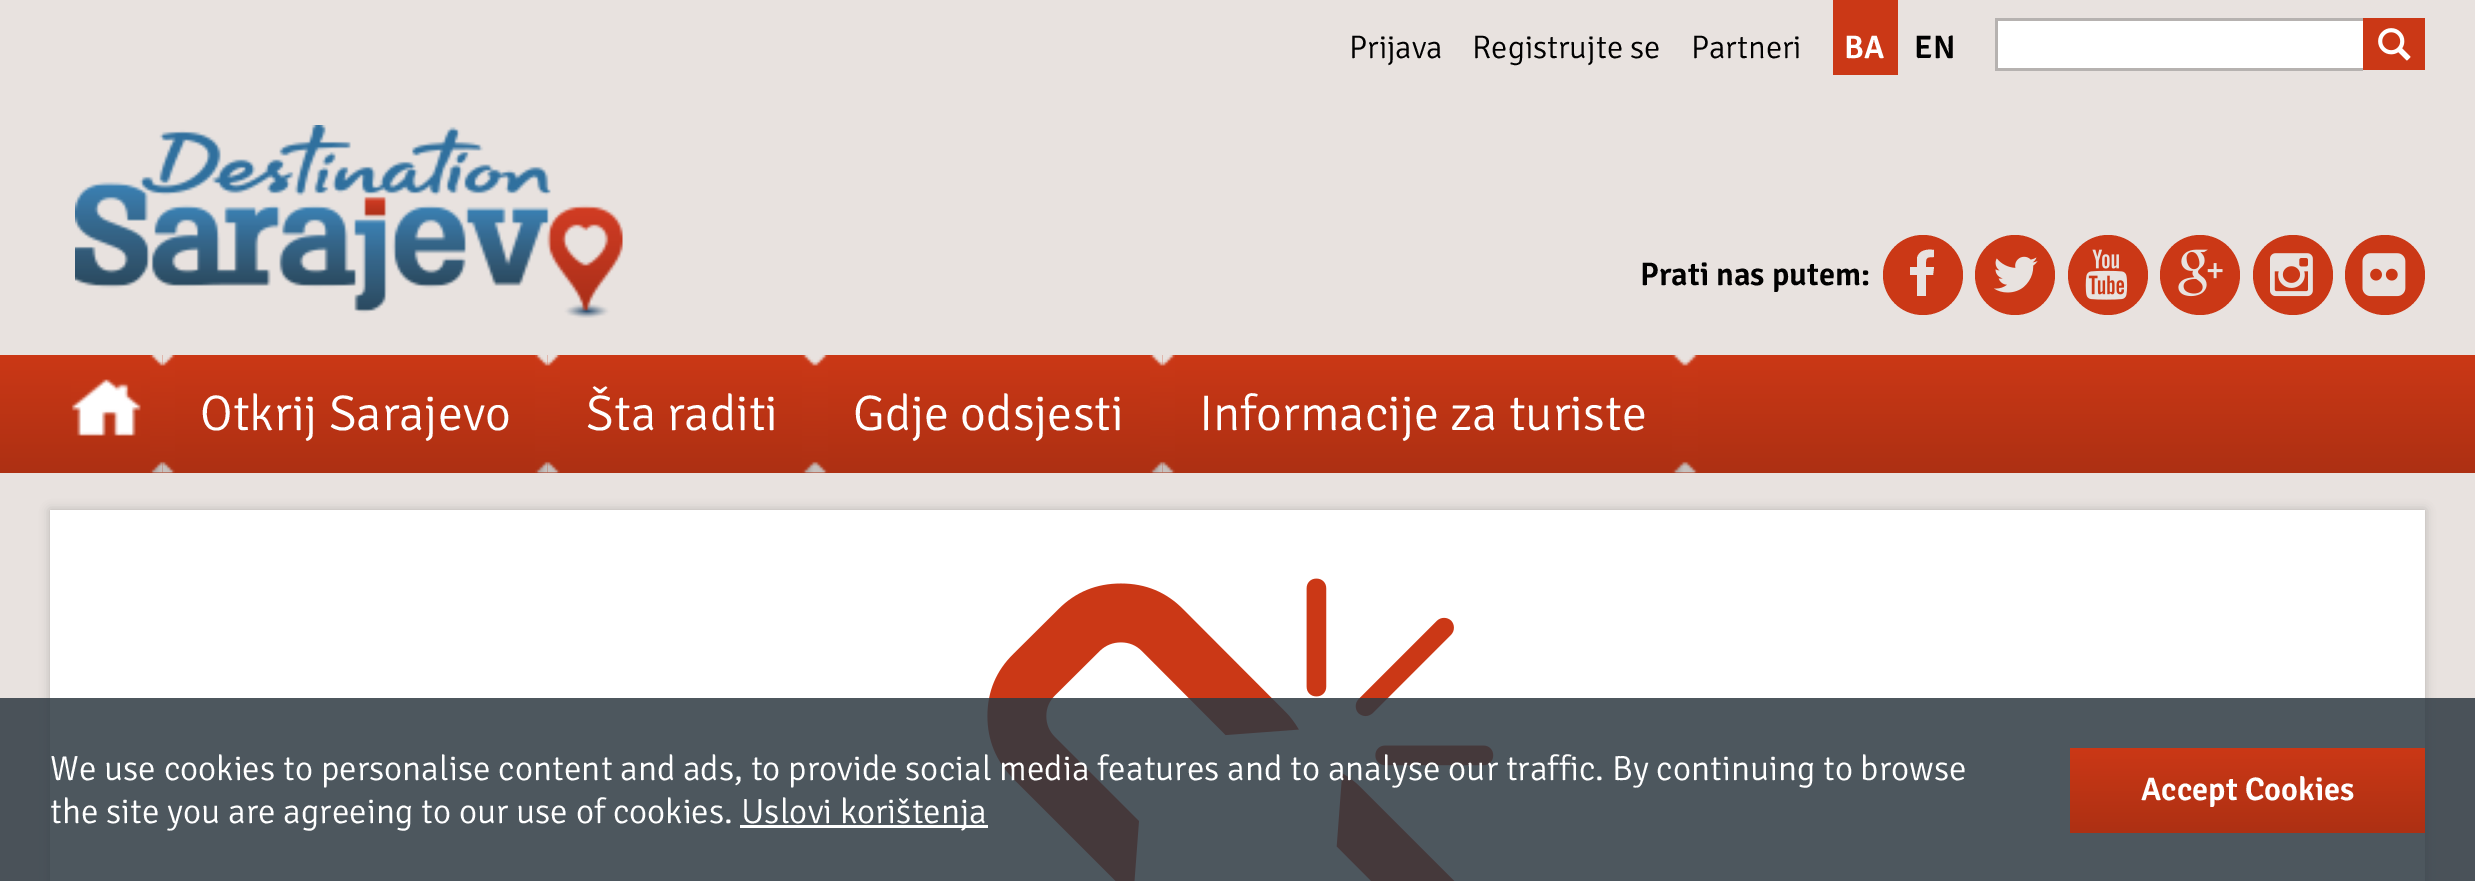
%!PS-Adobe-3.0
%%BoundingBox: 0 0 2475 881
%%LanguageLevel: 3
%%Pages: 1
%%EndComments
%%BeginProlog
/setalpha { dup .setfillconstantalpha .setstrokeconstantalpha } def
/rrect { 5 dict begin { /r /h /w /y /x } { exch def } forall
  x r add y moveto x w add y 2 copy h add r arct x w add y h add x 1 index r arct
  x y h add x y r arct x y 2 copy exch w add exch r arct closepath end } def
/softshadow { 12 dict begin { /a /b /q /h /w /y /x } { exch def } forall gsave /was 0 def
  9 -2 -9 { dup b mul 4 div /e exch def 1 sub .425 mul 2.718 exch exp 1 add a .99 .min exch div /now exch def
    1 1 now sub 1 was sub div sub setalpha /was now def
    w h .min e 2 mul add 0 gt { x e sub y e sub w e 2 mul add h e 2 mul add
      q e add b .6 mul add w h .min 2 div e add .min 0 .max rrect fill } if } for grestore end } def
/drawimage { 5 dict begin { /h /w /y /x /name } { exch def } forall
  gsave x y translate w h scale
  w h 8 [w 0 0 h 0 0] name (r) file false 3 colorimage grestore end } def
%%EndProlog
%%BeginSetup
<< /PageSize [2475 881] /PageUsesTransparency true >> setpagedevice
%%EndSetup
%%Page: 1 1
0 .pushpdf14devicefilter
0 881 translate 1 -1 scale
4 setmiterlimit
0.91 0.886 0.875 setrgbcolor
0 0 2475 881 rectfill
0.796 0.22 0.086 setrgbcolor
1833 0 65 75 rectfill
1 setgray
1998 21 365 47 rectfill
0.714 0.698 0.69 setrgbcolor
1995 18 368 3 rectfill
1995 68 368 3 rectfill
1995 18 3 52 rectfill
0.796 0.22 0.086 setrgbcolor
2363 18 62 52 rectfill
(images/1.raw) 2378 28 33 33 drawimage
(images/2.raw) 75 125 548 193 drawimage
newpath 1923 275 40 0 360 arc closepath fill
0.91 0.886 0.875 setrgbcolor
newpath 1910 275 moveto 1910 267 lineto 1917 267 lineto 1917 258 lineto 1919 250 1927 249 1934 250 curveto 1934 257 lineto 1925 257 1926 258 1926 267 curveto 1934 267 lineto 1933 275 lineto 1926 275 lineto 1926 296 lineto 1917 296 lineto 1917 275 lineto closepath fill
0.796 0.22 0.086 setrgbcolor
newpath 2015 275 40 0 360 arc closepath fill
(images/3.raw) 1994 256 44 37 drawimage
newpath 2108 275 40 0 360 arc closepath fill
(images/4.raw) 2085 249 43 51 drawimage
newpath 2200 275 40 0 360 arc closepath fill
(images/5.raw) 2178 249 45 48 drawimage
newpath 2293 275 40 0 360 arc closepath fill
(images/6.raw) 2270 253 43 44 drawimage
newpath 2385 275 40 0 360 arc closepath fill
(images/7.raw) 2362 253 44 44 drawimage
gsave newpath 0 355 moveto 2475 355 lineto 2475 473 lineto 0 473 lineto closepath clip newpath
<< /ShadingType 2 /ColorSpace /DeviceRGB /Coords [1238 355 1238 473] /Extend [true true] /Function << /FunctionType 2 /Domain [0 1] /C0 [0.796 0.22 0.086] /C1 [0.678 0.188 0.075] /N 1 >> >> shfill grestore
(images/8.raw) 150 355 13 118 drawimage
(images/9.raw) 71 379 70 57 drawimage
(images/10.raw) 535 355 13 118 drawimage
(images/11.raw) 162 355 13 118 drawimage
(images/12.raw) 802 355 13 118 drawimage
(images/11.raw) 547 355 13 118 drawimage
(images/10.raw) 1150 355 13 118 drawimage
(images/13.raw) 815 355 13 118 drawimage
(images/12.raw) 1672 355 13 118 drawimage
(images/14.raw) 1162 355 13 118 drawimage
(images/13.raw) 1685 355 13 118 drawimage
0 setgray
50 510 2375 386 0 5 0.2 softshadow
1 setgray
50 510 2375 371 rectfill
(images/15.raw) 987 578 507 303 drawimage
0.85 setalpha
0.18 0.224 0.259 setrgbcolor
0 698 2475 183 rectfill
1 setalpha
1 setgray
740 825 248 3 rectfill
gsave newpath 2070 748 moveto 2425 748 lineto 2425 833 lineto 2070 833 lineto closepath clip newpath
<< /ShadingType 2 /ColorSpace /DeviceRGB /Coords [2248 748 2248 833] /Extend [true true] /Function << /FunctionType 2 /Domain [0 1] /C0 [0.796 0.22 0.086] /C1 [0.678 0.188 0.075] /N 1 >> >> shfill grestore
/Signika-Light [32.5 0 0 -32.5 0 0] selectfont
0.004 setgray
1349 58 moveto (Prijava) show
1472 58 moveto (Registrujte se) show
1691 58 moveto (Partneri) show
/Signika-SemiBold [32.5 0 0 -32.5 0 0] selectfont
1 setgray
1844 58 moveto (BA) show
0.004 setgray
1914 58 moveto (EN) show
1640 285 moveto (Prati nas putem:) show
/Signika-Light [50 0 0 -50 0 0] selectfont
1 setgray
200 430 moveto (Otkrij Sarajevo) show
586 430 moveto (Šta raditi) show
853 430 moveto (Gdje odsjesti) show
1199 430 moveto (Informacije za turiste) show
/Signika-Light [35 0 0 -35 0 0] selectfont
50 780 moveto (We use cookies to personalise content and ads, to provide social media features and to analyse our traffic. By continuing to browse) show
50 823 moveto (the site you are agreeing to our use of cookies.) show
741 823 moveto (Uslovi korištenja) show
/Signika-SemiBold [32.5 0 0 -32.5 0 0] selectfont
2141 800 moveto (Accept Cookies) show
.poppdf14devicefilter showpage
%%EOF
